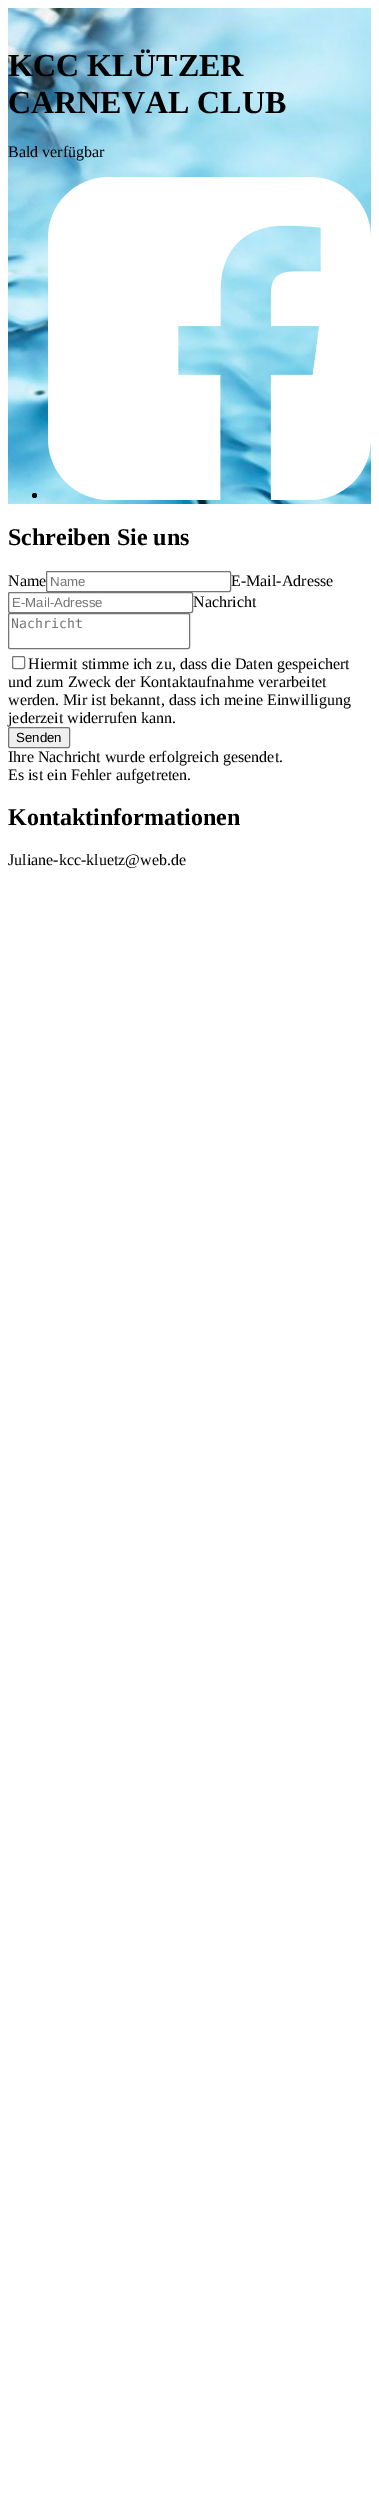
%!PS-Adobe-3.0
%%BoundingBox: 0 0 379 2514
%%LanguageLevel: 3
%%Pages: 1
%%EndComments
%%BeginProlog
/rrect { 5 dict begin { /r /h /w /y /x } { exch def } forall
  x r add y moveto x w add y 2 copy h add r arct x w add y h add x 1 index r arct
  x y h add x y r arct x y 2 copy exch w add exch r arct closepath end } def
/drawimage { 5 dict begin { /h /w /y /x /name } { exch def } forall
  gsave x y translate w h scale
  w h 8 [w 0 0 h 0 0] name (r) file false 3 colorimage grestore end } def
%%EndProlog
%%BeginSetup
<< /PageSize [379 2514] >> setpagedevice
%%EndSetup
%%Page: 1 1
0 2514 translate 1 -1 scale
4 setmiterlimit
1 setgray
0 0 379 2514 rectfill
(images/1.raw) 8 8 363 496 drawimage
0 setgray
newpath 34.5 495.5 2.5 0 360 arc closepath fill
(images/2.raw) 48 177 323 323 drawimage
0.463 setgray
46.5 571.5 184 20 1.5 rrect stroke
8.5 592.5 184 20 1.5 rrect stroke
8.5 613.5 181 35 1.5 rrect stroke
12.5 656.5 12 12 1.5 rrect stroke
0.937 setgray
8.5 727.5 61 20 1.5 rrect gsave fill grestore
0.463 setgray
stroke
/LiberationSerif-Bold [32 0 0 -32 0 0] selectfont
0 setgray
8 76 moveto (KCC KLÜTZER) show
8 113 moveto (CARNEVAL CLUB) show
/LiberationSerif-Regular [16 0 0 -16 0 0] selectfont
8 157 moveto (Bald verfügbar) show
/LiberationSerif-Bold [24 0 0 -24 0 0] selectfont
8 545 moveto (Schreiben Sie uns) show
/LiberationSerif-Regular [16 0 0 -16 0 0] selectfont
8 586 moveto (Name) show
/LiberationSans-Regular [13.25 0 0 -13.25 0 0] selectfont
0.459 setgray
50 586 moveto (Name) show
/LiberationSerif-Regular [16 0 0 -16 0 0] selectfont
0 setgray
231 586 moveto (E-Mail-Adresse) show
/LiberationSans-Regular [13.25 0 0 -13.25 0 0] selectfont
0.459 setgray
12 607 moveto (E-Mail-Adresse) show
/LiberationSerif-Regular [16 0 0 -16 0 0] selectfont
0 setgray
193 607 moveto (Nachricht) show
/DejaVuSansMono-Regular [13.25 0 0 -13.25 0 0] selectfont
0.459 setgray
11 628 moveto (Nachricht) show
/LiberationSerif-Regular [16 0 0 -16 0 0] selectfont
0 setgray
28 669 moveto (Hiermit stimme ich zu, dass die Daten gespeichert) show
8 687 moveto (und zum Zweck der Kontaktaufnahme verarbeitet) show
8 705 moveto (werden. Mir ist bekannt, dass ich meine Einwilligung) show
8 723 moveto (jederzeit widerrufen kann.) show
/LiberationSans-Regular [13.25 0 0 -13.25 0 0] selectfont
16 742 moveto (Senden) show
/LiberationSerif-Regular [16 0 0 -16 0 0] selectfont
8 762 moveto (Ihre Nachricht wurde erfolgreich gesendet.) show
8 780 moveto (Es ist ein Fehler aufgetreten.) show
/LiberationSerif-Bold [24 0 0 -24 0 0] selectfont
8 825 moveto (Kontaktinformationen) show
/LiberationSerif-Regular [16 0 0 -16 0 0] selectfont
8 865 moveto (Juliane-kcc-kluetz@web.de) show
showpage
%%EOF
